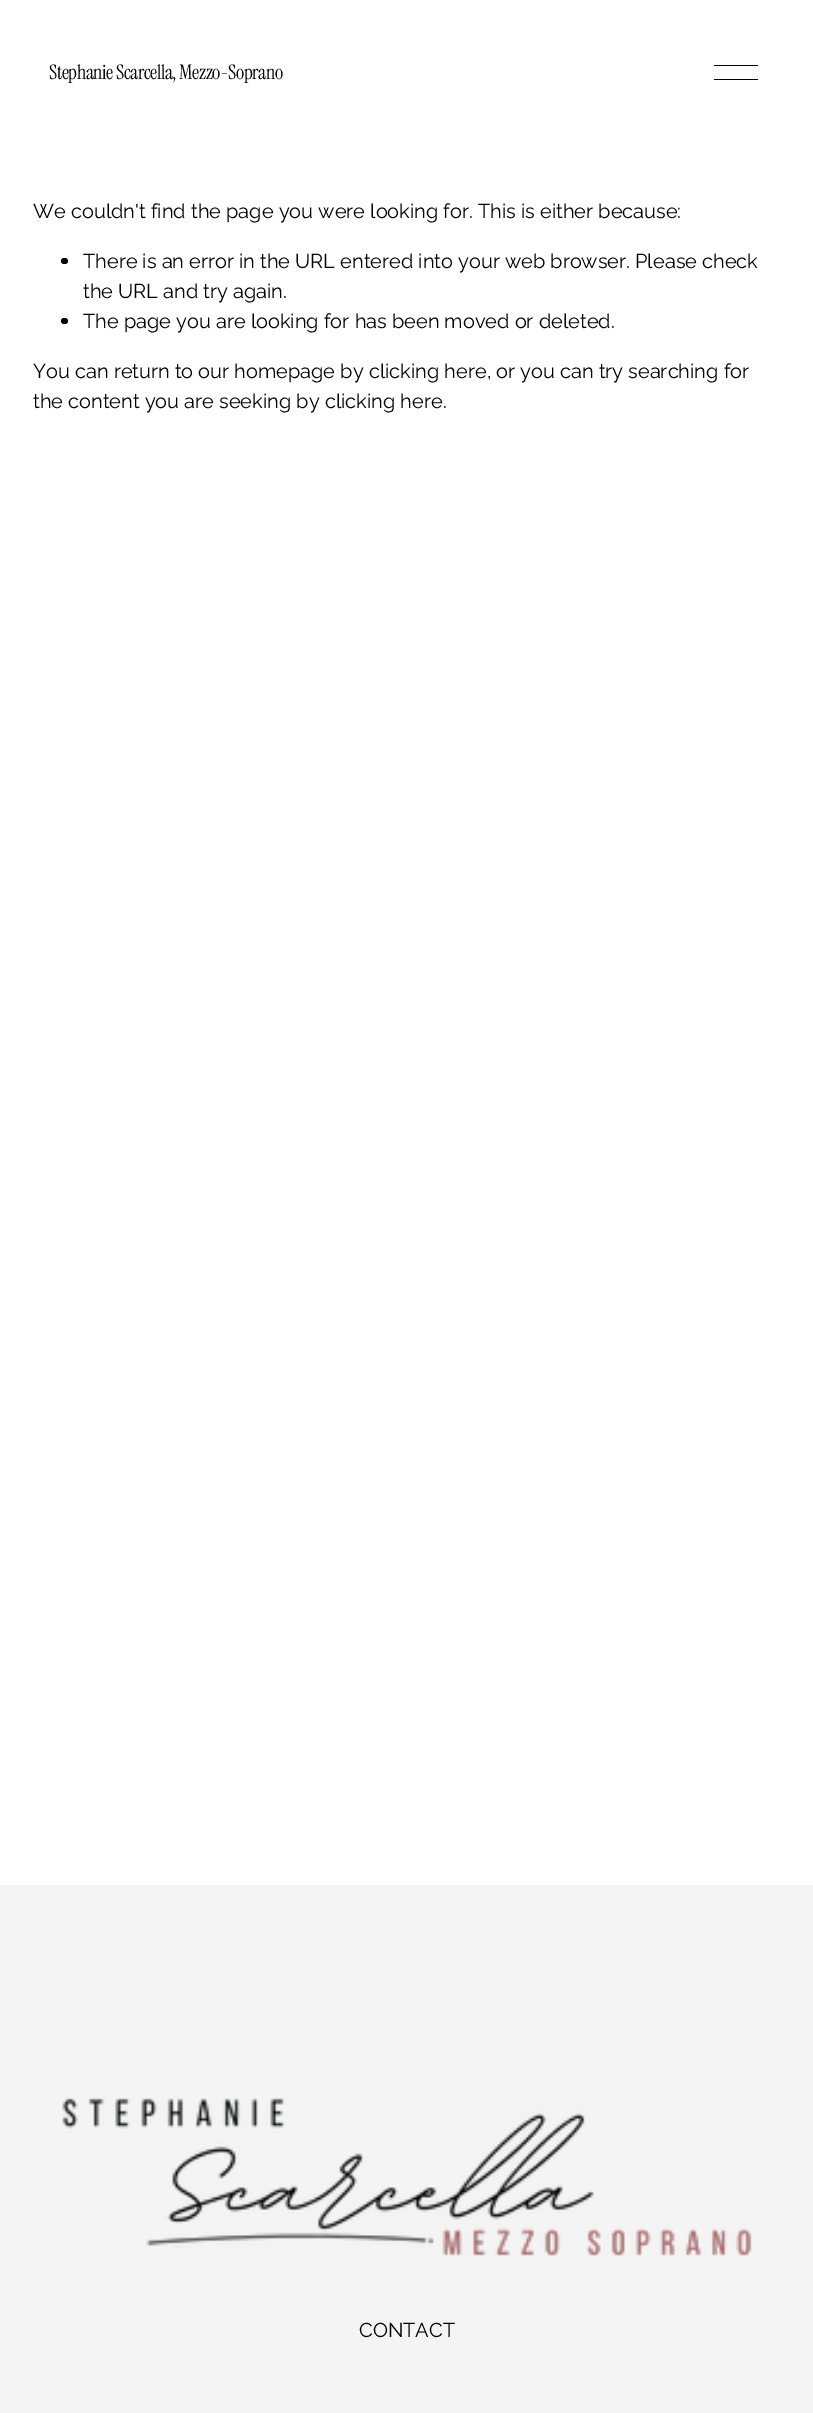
%!PS-Adobe-3.0
%%BoundingBox: 0 0 813 2413
%%LanguageLevel: 3
%%Pages: 1
%%EndComments
%%BeginProlog
/rrect { 5 dict begin { /r /h /w /y /x } { exch def } forall
  x r add y moveto x w add y 2 copy h add r arct x w add y h add x 1 index r arct
  x y h add x y r arct x y 2 copy exch w add exch r arct closepath end } def
/drawimage { 5 dict begin { /h /w /y /x /name } { exch def } forall
  gsave x y translate w h scale
  w h 8 [w 0 0 h 0 0] name (r) file false 3 colorimage grestore end } def
%%EndProlog
%%BeginSetup
<< /PageSize [813 2413] >> setpagedevice
%%EndSetup
%%Page: 1 1
0 2413 translate 1 -1 scale
4 setmiterlimit
1 setgray
0 0 813 2413 rectfill
0 setgray
714 65 44 1 rectfill
714 79 44 1 rectfill
61 258 7 6 3 rrect fill
61 318 7 6 3 rrect fill
0.957 setgray
0 1885 813 528 rectfill
(images/1.raw) 62 2098 690 159 drawimage
/InstrumentSerif-Regular [20 0 0 -20 0 0] selectfont
0 setgray
49 79 moveto -0.4 0 (Stephanie Scarcella, Mezzo-Soprano) ashow
/Raleway-Regular [20 0 0 -20 0 0] selectfont
33 218 moveto (We couldn't find the page you were looking for. This is either because:) show
83 268 moveto (There is an error in the URL entered into your web browser. Please check) show
83 298 moveto (the URL and try again.) show
83 328 moveto (The page you are looking for has been moved or deleted.) show
33 378 moveto (You can return to our homepage by clicking here, or you can try searching for) show
33 408 moveto (the content you are seeking by clicking here.) show
359 2337 moveto (CONTACT) show
showpage
%%EOF
